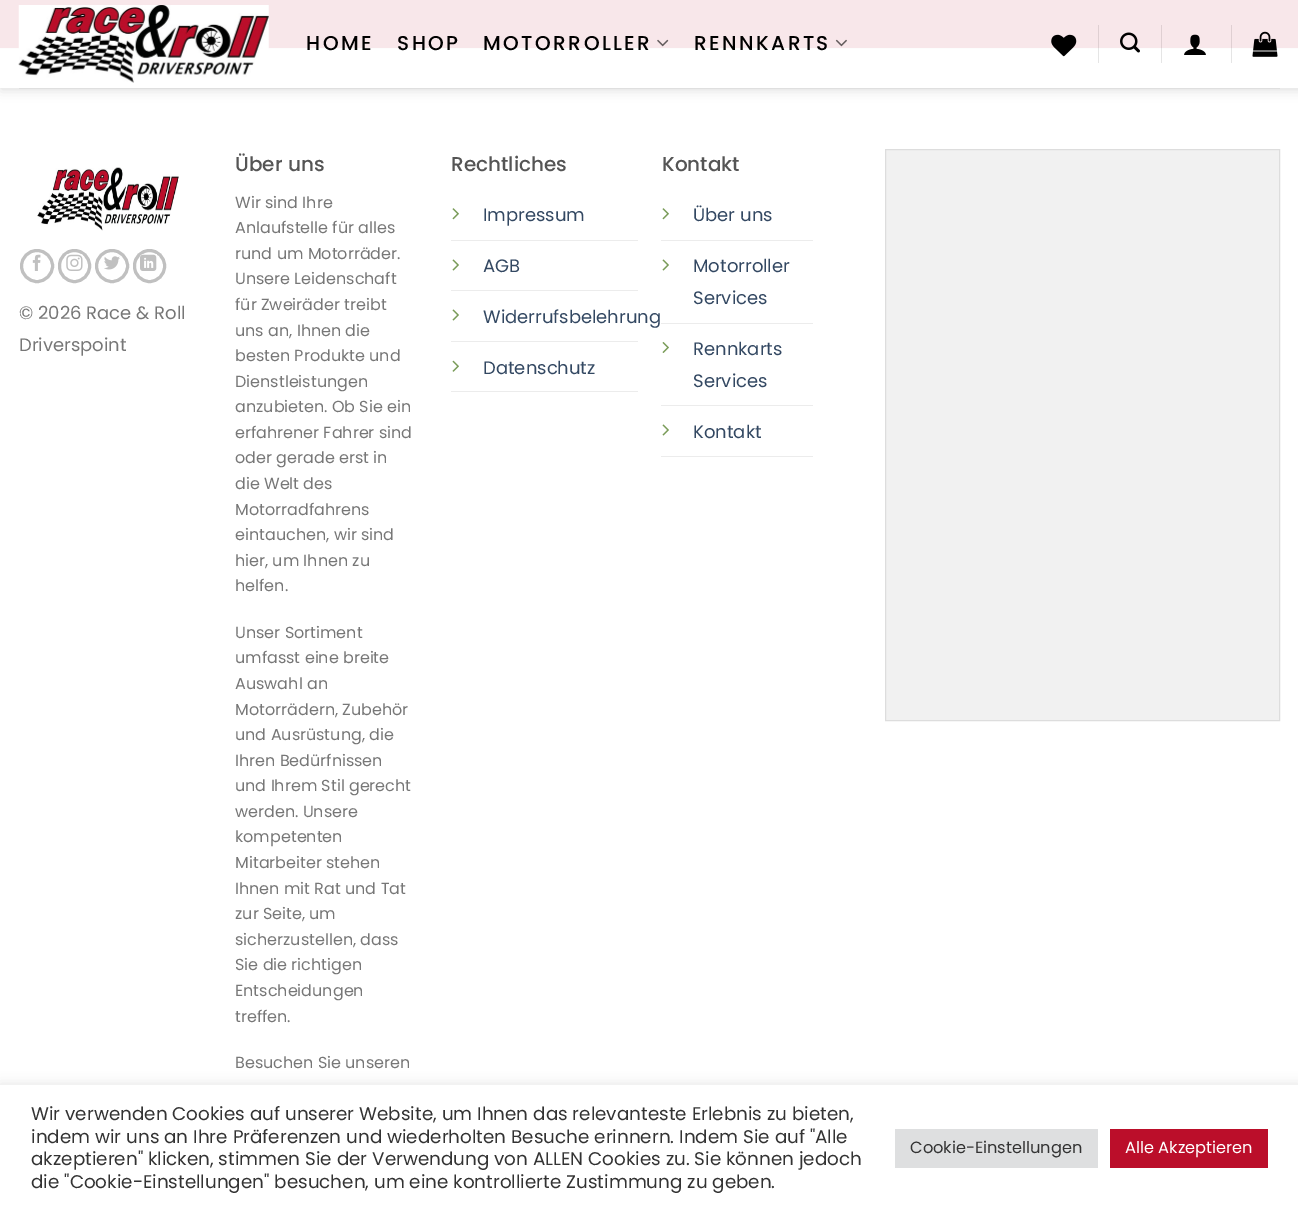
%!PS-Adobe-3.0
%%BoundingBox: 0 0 1298 1209
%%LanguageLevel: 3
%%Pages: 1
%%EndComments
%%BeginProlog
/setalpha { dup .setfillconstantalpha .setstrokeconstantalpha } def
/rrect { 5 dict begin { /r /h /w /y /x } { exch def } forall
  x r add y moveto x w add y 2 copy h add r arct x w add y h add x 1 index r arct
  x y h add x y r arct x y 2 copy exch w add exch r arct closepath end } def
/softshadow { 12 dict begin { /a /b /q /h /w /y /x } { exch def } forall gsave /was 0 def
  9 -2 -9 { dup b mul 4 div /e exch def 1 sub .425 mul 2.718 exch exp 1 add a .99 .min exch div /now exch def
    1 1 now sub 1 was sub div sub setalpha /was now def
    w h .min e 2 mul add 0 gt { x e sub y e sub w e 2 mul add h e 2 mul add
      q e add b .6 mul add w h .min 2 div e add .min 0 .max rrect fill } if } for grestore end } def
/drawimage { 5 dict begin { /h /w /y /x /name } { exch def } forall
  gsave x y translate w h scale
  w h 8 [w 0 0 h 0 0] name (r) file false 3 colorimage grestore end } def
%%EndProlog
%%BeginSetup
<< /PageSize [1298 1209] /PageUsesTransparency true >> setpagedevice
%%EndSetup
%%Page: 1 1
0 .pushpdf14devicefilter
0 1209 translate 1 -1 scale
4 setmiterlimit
1 setgray
0 0 1298 1209 rectfill
0.733 0.055 0.165 setrgbcolor
0 0 1298 48 rectfill
0.902 setgray
0 48 1298 1 rectfill
gsave
newpath 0 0 moveto 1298 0 lineto 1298 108 lineto 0 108 lineto closepath 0 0 moveto 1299 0 lineto 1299 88 lineto 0 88 lineto closepath eoclip newpath
0 setgray
1 1 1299 88 0 6 0.15 softshadow
grestore
0.9 setalpha
1 setgray
0 0 1298 88 rectfill
1 setalpha
(images/1.raw) 18 5 251 78 drawimage
(images/2.raw) 657 39 12 8 drawimage
(images/3.raw) 835 39 12 8 drawimage
(images/4.raw) 1051 34 26 23 drawimage
0.1 setalpha
0 setgray
1098 25 1 38 rectfill
1 setalpha
(images/5.raw) 1120 32 20 21 drawimage
0.1 setalpha
1161 25 1 38 rectfill
1 setalpha
(images/6.raw) 1184 34 22 21 drawimage
0.1 setalpha
1231 25 1 38 rectfill
1 setalpha
(images/7.raw) 1252 31 26 26 drawimage
0.875 setgray
19 88 1261 1 rectfill
(images/8.raw) 37 167 142 64 drawimage
0.753 setgray
3 setlinewidth
newpath 37 266 15.5 0 360 arc closepath stroke
(images/9.raw) 32 254 9 17 drawimage
59.5 250.5 30 31 15 rrect stroke
(images/10.raw) 66 254 17 17 drawimage
newpath 112 266 15.5 0 360 arc closepath stroke
(images/11.raw) 104 256 16 14 drawimage
134.5 250.5 30 31 15 rrect stroke
(images/12.raw) 140 254 17 17 drawimage
0.925 setgray
451 240 187 1 rectfill
(images/13.raw) 452 208 7 12 drawimage
451 290 187 1 rectfill
(images/14.raw) 452 259 7 12 drawimage
451 341 187 1 rectfill
(images/14.raw) 452 309 7 12 drawimage
451 391 187 1 rectfill
(images/15.raw) 452 360 7 12 drawimage
661 240 152 1 rectfill
(images/13.raw) 662 208 7 12 drawimage
661 323 152 1 rectfill
(images/14.raw) 662 259 7 12 drawimage
661 405 152 1 rectfill
(images/16.raw) 662 342 7 11 drawimage
661 456 152 1 rectfill
(images/14.raw) 662 424 7 12 drawimage
0.945 setgray
newpath 885.5 149.5 moveto 1279.5 149.5 lineto 1279.5 720.5 lineto 885.5 720.5 lineto closepath gsave fill grestore
0.867 setgray
1 setlinewidth
stroke
0.675 0.671 0.671 setrgbcolor
0 1084 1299 125 0 6 0.3 softshadow
1 setgray
0 1085 1298 124 rectfill
0.871 0.875 0.878 setrgbcolor
895 1129 203 39 rectfill
0.733 0.055 0.165 setrgbcolor
1110 1129 158 39 rectfill
/Poppins-Medium [20 0 0 -20 0 0] selectfont
0 setgray
306 50 moveto 2.5 0 (HOME) ashow
397 50 moveto 2.5 0 (SHOP) ashow
483 50 moveto 2.5 0 (MOTORROLLER) ashow
694 50 moveto 2.5 0 (RENNKARTS) ashow
/Poppins-Regular [18 0 0 -18 0 0] selectfont
0.467 setgray
19 319 moveto (© 2026 Race & Roll) show
19 351 moveto (Driverspoint) show
/Poppins-Medium [20 0 0 -20 0 0] selectfont
0.333 setgray
235 171 moveto (Über uns) show
/Poppins-Regular [16 0 0 -16 0 0] selectfont
0.467 setgray
235 208 moveto (Wir sind Ihre) show
235 233 moveto (Anlaufstelle für alles) show
235 259 moveto (rund um Motorräder.) show
235 284 moveto (Unsere Leidenschaft) show
235 310 moveto (für Zweiräder treibt) show
235 336 moveto (uns an, Ihnen die) show
235 361 moveto (besten Produkte und) show
235 387 moveto (Dienstleistungen) show
235 412 moveto (anzubieten. Ob Sie ein) show
235 438 moveto (erfahrener Fahrer sind) show
235 463 moveto (oder gerade erst in) show
235 489 moveto (die Welt des) show
235 515 moveto (Motorradfahrens) show
235 540 moveto (eintauchen, wir sind) show
235 566 moveto (hier, um Ihnen zu) show
235 591 moveto (helfen.) show
235 638 moveto (Unser Sortiment) show
235 663 moveto (umfasst eine breite) show
235 689 moveto (Auswahl an) show
235 715 moveto (Motorrädern, Zubehör) show
235 740 moveto (und Ausrüstung, die) show
235 766 moveto (Ihren Bedürfnissen) show
235 791 moveto (und Ihrem Stil gerecht) show
235 817 moveto (werden. Unsere) show
235 842 moveto (kompetenten) show
235 868 moveto (Mitarbeiter stehen) show
235 894 moveto (Ihnen mit Rat und Tat) show
235 919 moveto (zur Seite, um) show
235 945 moveto (sicherzustellen, dass) show
235 970 moveto (Sie die richtigen) show
235 996 moveto (Entscheidungen) show
235 1022 moveto (treffen.) show
235 1068 moveto (Besuchen Sie unseren) show
/Poppins-Medium [20 0 0 -20 0 0] selectfont
0.333 setgray
451 171 moveto (Rechtliches) show
/Poppins-Regular [18 0 0 -18 0 0] selectfont
0.2 0.282 0.384 setrgbcolor
483 221 moveto (Impressum) show
483 272 moveto (AGB) show
483 323 moveto (Widerrufsbelehrung) show
483 374 moveto (Datenschutz) show
/Poppins-Medium [20 0 0 -20 0 0] selectfont
0.333 setgray
662 171 moveto (Kontakt) show
/Poppins-Regular [18 0 0 -18 0 0] selectfont
0.2 0.282 0.384 setrgbcolor
693 221 moveto (Über uns) show
693 272 moveto (Motorroller) show
693 304 moveto (Services) show
693 355 moveto (Rennkarts) show
693 387 moveto (Services) show
693 438 moveto (Kontakt) show
/Poppins-Regular [18.35 0 0 -18.35 0 0] selectfont
0.2 setgray
31 1120 moveto (Wir verwenden Cookies auf unserer Website, um Ihnen das relevanteste Erlebnis zu bieten,) show
31 1143 moveto (indem wir uns an Ihre Präferenzen und wiederholten Besuche erinnern. Indem Sie auf "Alle) show
31 1165 moveto (akzeptieren" klicken, stimmen Sie der Verwendung von ALLEN Cookies zu. Sie können jedoch) show
31 1188 moveto (die "Cookie-Einstellungen" besuchen, um eine kontrollierte Zustimmung zu geben.) show
/Poppins-Regular [16.25 0 0 -16.25 0 0] selectfont
910 1153 moveto (Cookie-Einstellungen) show
1 setgray
1125 1153 moveto (Alle Akzeptieren) show
.poppdf14devicefilter showpage
%%EOF
